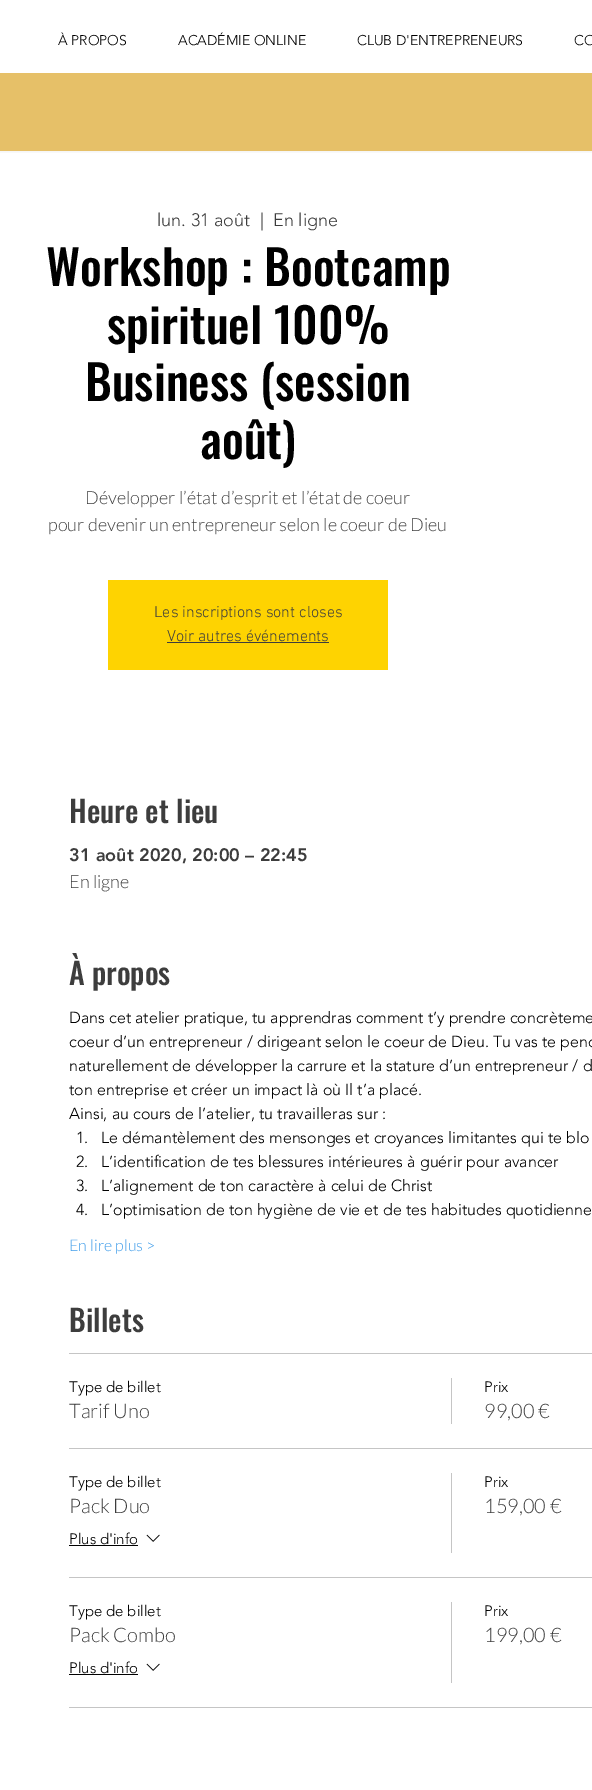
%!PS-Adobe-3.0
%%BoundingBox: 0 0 592 1790
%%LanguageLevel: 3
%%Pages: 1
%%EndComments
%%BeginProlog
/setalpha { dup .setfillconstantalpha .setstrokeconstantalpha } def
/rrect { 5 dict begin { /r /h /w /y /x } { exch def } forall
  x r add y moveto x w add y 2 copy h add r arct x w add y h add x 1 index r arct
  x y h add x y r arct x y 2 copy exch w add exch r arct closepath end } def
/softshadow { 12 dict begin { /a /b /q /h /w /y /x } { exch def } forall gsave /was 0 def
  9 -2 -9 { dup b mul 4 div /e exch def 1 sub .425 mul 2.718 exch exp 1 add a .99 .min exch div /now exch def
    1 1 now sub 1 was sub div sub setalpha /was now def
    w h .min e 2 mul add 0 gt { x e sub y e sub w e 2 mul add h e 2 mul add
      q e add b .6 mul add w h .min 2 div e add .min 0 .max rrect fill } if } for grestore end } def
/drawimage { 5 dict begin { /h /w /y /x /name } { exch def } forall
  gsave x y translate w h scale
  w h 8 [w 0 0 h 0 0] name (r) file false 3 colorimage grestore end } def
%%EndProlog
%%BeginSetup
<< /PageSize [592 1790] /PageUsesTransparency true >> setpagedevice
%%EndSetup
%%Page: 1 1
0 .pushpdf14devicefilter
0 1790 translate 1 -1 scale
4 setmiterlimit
1 setgray
0 0 592 1790 rectfill
gsave
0 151 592 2 rectclip
0 setgray
-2 -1 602 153 0 2.5 0.05 softshadow
grestore
0.902 0.753 0.408 setrgbcolor
0 73 592 78 rectfill
0.996 0.827 0.004 setrgbcolor
108 580 280 90 rectfill
0.239 setgray
167 642 162 1 rectfill
0.773 setgray
69 1353 523 1 rectfill
69 1448 523 1 rectfill
451 1378 1 46 rectfill
69 1577 523 1 rectfill
0 setgray
69 1545 69 1 rectfill
(images/1.raw) 146 1534 14 8 drawimage
0.773 setgray
451 1473 1 80 rectfill
69 1707 523 1 rectfill
0 setgray
69 1674 69 1 rectfill
(images/1.raw) 146 1663 14 8 drawimage
0.773 setgray
451 1602 1 81 rectfill
/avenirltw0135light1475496-Light [14 0 0 -14 0 0] selectfont
0 setgray
58 45 moveto (À PROPOS) show
178 45 moveto (ACADÉMIE ONLINE) show
357 45 moveto (CLUB D'ENTREPRENEURS) show
574 45 moveto (CO) show
/avenirltw0135light1475496-Light [18 0 0 -18 0 0] selectfont
0.239 setgray
157 226 moveto (lun. 31 août) show
260 226 moveto (|) show
273 226 moveto (En ligne) show
/Oswald-Medium [48 0 0 -48 0 0] selectfont
0 setgray
46 286 moveto (Workshop : Bootcamp) show
107 344 moveto (spirituel 100%) show
85 401 moveto (Business \(session) show
200 459 moveto (août\)) show
/Lato-Light [18 0 0 -18 0 0] selectfont
0.239 setgray
85 504 moveto (Développer l’état d’esprit et l’état de coeur) show
48 531 moveto (pour devenir un entrepreneur selon le coeur de Dieu) show
/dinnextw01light-Light [16 0 0 -16 0 0] selectfont
154 617 moveto (Les inscriptions sont closes) show
167 641 moveto (Voir autres événements) show
/Oswald-Medium [30 0 0 -30 0 0] selectfont
69 823 moveto (Heure et lieu) show
/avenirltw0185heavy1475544-Black [18 0 0 -18 0 0] selectfont
69 861 moveto (31 août 2020, 20:00 – 22:45) show
/Lato-Light [18 0 0 -18 0 0] selectfont
69 888 moveto (En ligne) show
/Oswald-Medium [30 0 0 -30 0 0] selectfont
69 985 moveto (À propos) show
/avenirltw0135light1475496-Light [16 0 0 -16 0 0] selectfont
0 setgray
69 1023 moveto (Dans cet atelier pratique, tu apprendras comment t’y prendre concrèteme) show
69 1047 moveto (coeur d’un entrepreneur / dirigeant selon le coeur de Dieu. Tu vas te penc) show
69 1071 moveto (naturellement de développer la carrure et la stature d’un entrepreneur / d) show
69 1095 moveto (ton entreprise et créer un impact là où Il t’a placé.) show
69 1119 moveto (Ainsi, au cours de l’atelier, tu travailleras sur :) show
76 1143 moveto (1.) show
101 1143 moveto (Le démantèlement des mensonges et croyances limitantes qui te blo) show
76 1167 moveto (2.) show
101 1167 moveto (L’identification de tes blessures intérieures à guérir pour avancer) show
76 1191 moveto (3.) show
101 1191 moveto (L’alignement de ton caractère à celui de Christ) show
76 1215 moveto (4.) show
101 1215 moveto (L’optimisation de ton hygiène de vie et de tes habitudes quotidienne) show
/Lato-Light [16 0 0 -16 0 0] selectfont
0.239 0.608 0.914 setrgbcolor
69 1251 moveto (En lire plus >) show
/Oswald-Medium [30 0 0 -30 0 0] selectfont
0.239 setgray
69 1332 moveto (Billets) show
/avenirltw0135light1475496-Light [15 0 0 -15 0 0] selectfont
0 setgray
69 1392 moveto (Type de billet) show
/Lato-Light [20 0 0 -20 0 0] selectfont
0.239 setgray
69 1418 moveto (Tarif Uno) show
/avenirltw0135light1475496-Light [15 0 0 -15 0 0] selectfont
0 setgray
484 1392 moveto (Prix) show
/Lato-Light [20 0 0 -20 0 0] selectfont
0.239 setgray
484 1418 moveto (99,00 €) show
/avenirltw0135light1475496-Light [15 0 0 -15 0 0] selectfont
0 setgray
69 1487 moveto (Type de billet) show
/Lato-Light [20 0 0 -20 0 0] selectfont
0.239 setgray
69 1513 moveto (Pack Duo) show
/avenirltw0135light1475496-Light [15 0 0 -15 0 0] selectfont
0 setgray
69 1544 moveto (Plus d'info) show
484 1487 moveto (Prix) show
/Lato-Light [20 0 0 -20 0 0] selectfont
0.239 setgray
484 1513 moveto (159,00 €) show
/avenirltw0135light1475496-Light [15 0 0 -15 0 0] selectfont
0 setgray
69 1616 moveto (Type de billet) show
/Lato-Light [20 0 0 -20 0 0] selectfont
0.239 setgray
69 1642 moveto (Pack Combo) show
/avenirltw0135light1475496-Light [15 0 0 -15 0 0] selectfont
0 setgray
69 1673 moveto (Plus d'info) show
484 1616 moveto (Prix) show
/Lato-Light [20 0 0 -20 0 0] selectfont
0.239 setgray
484 1642 moveto (199,00 €) show
.poppdf14devicefilter showpage
%%EOF
